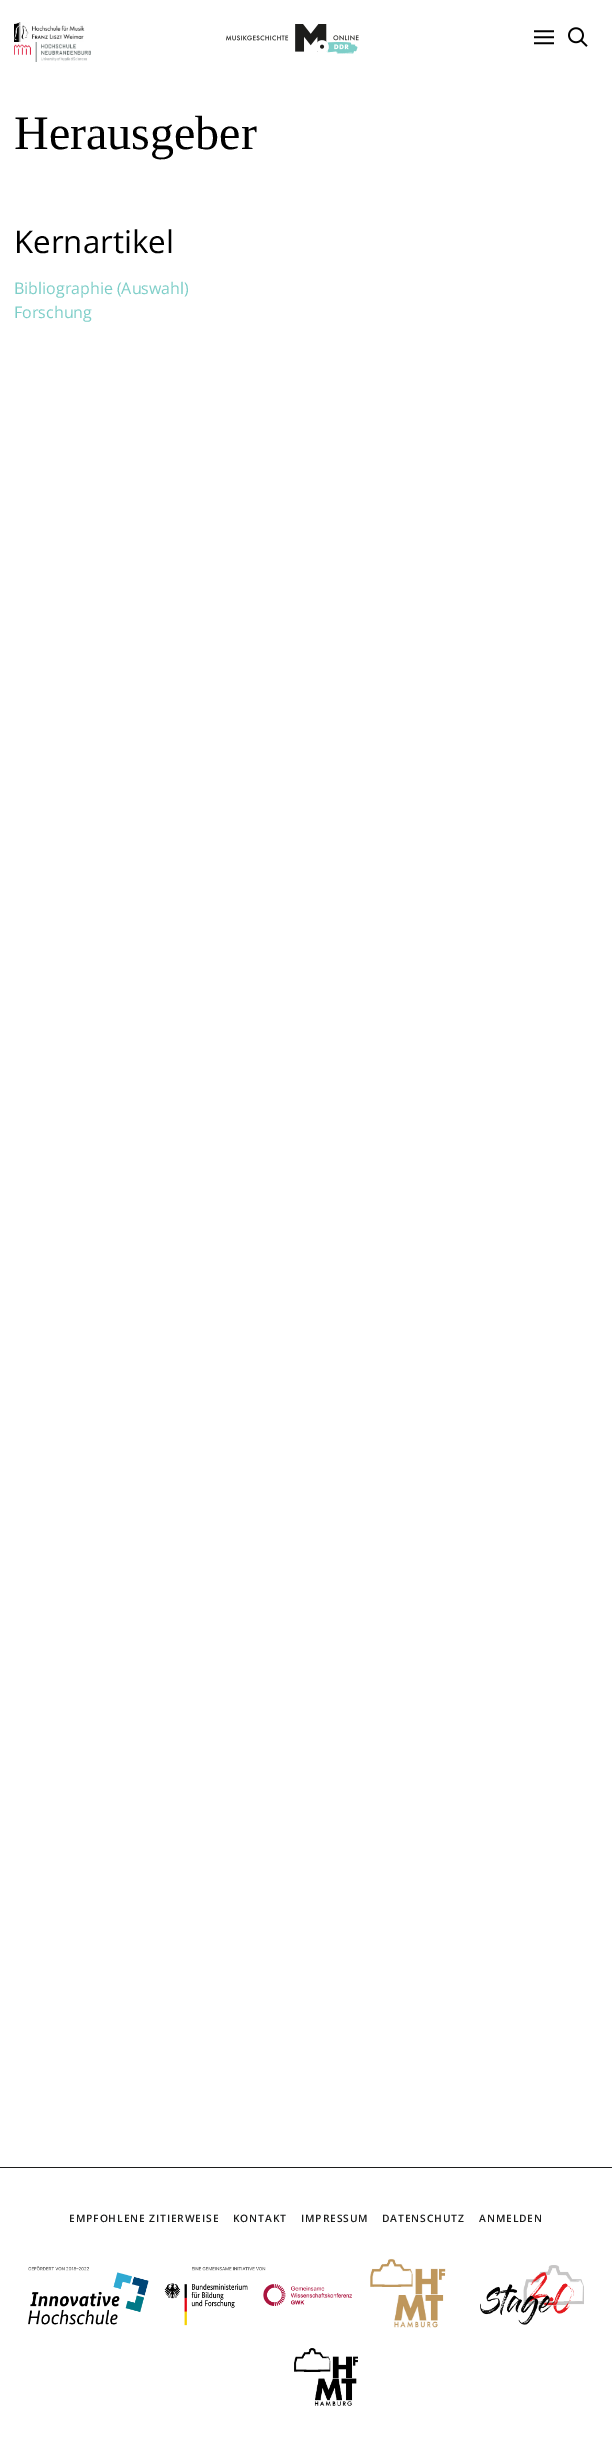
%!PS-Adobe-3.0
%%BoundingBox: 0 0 612 2458
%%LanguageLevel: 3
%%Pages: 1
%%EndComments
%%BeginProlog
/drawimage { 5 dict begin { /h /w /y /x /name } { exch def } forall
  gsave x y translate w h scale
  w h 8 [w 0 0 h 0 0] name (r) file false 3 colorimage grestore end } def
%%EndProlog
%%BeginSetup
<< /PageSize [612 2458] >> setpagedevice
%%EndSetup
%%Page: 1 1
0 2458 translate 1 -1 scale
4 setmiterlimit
1 setgray
0 0 612 2458 rectfill
(images/1.raw) 14 22 71 20 drawimage
(images/2.raw) 14 42 77 20 drawimage
(images/3.raw) 226 24 133 30 drawimage
(images/4.raw) 534 30 20 15 drawimage
(images/5.raw) 568 27 20 20 drawimage
0.11 0.114 0.114 setrgbcolor
0 2167 612 1 rectfill
(images/6.raw) 28 2266 324 60 drawimage
(images/7.raw) 370 2258 76 70 drawimage
(images/8.raw) 480 2265 104 60 drawimage
(images/9.raw) 294 2348 64 58 drawimage
/LiberationSerif-Regular [48 0 0 -48 0 0] selectfont
0 setgray
14 149 moveto (Herausgeber) show
/OpenSans-Regular [31.25 0 0 -31.25 0 0] selectfont
14 253 moveto (Kernartikel) show
/OpenSans-Regular [16 0 0 -16 0 0] selectfont
0.49 0.808 0.784 setrgbcolor
14 294 moveto (Bibliographie \(Auswahl\)) show
14 318 moveto (Forschung) show
/OpenSans-SemiBold [10.25 0 0 -10.25 0 0] selectfont
0.11 0.114 0.114 setrgbcolor
69 2222 moveto 0.9 0 (EMPFOHLENE ZITIERWEISE) ashow
233 2222 moveto 0.9 0 (KONTAKT) ashow
301 2222 moveto 0.9 0 (IMPRESSUM) ashow
382 2222 moveto 0.9 0 (DATENSCHUTZ) ashow
479 2222 moveto 0.9 0 (ANMELDEN) ashow
showpage
%%EOF
